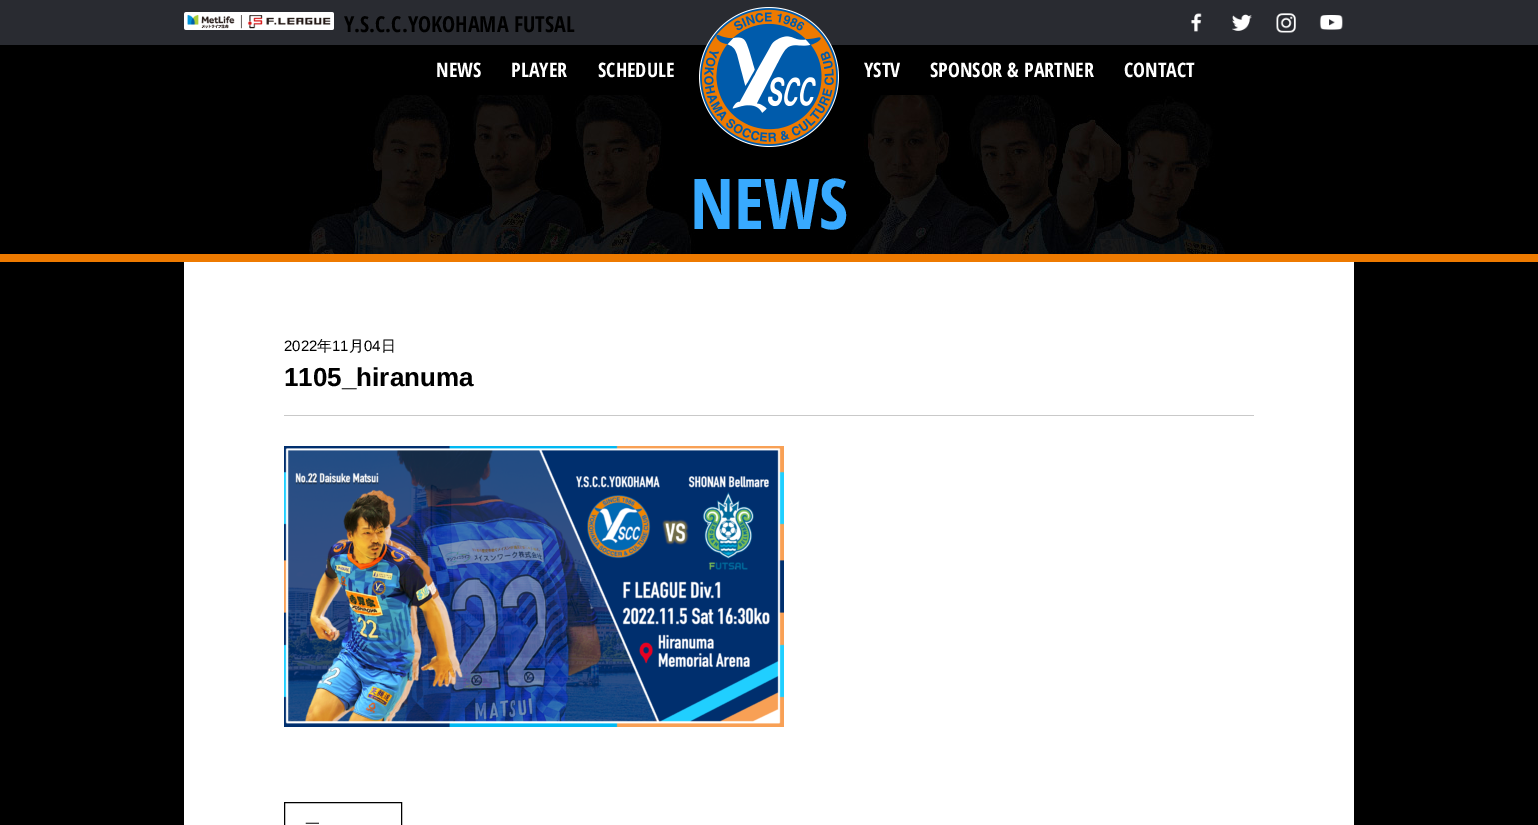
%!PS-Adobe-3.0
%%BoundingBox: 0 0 1538 825
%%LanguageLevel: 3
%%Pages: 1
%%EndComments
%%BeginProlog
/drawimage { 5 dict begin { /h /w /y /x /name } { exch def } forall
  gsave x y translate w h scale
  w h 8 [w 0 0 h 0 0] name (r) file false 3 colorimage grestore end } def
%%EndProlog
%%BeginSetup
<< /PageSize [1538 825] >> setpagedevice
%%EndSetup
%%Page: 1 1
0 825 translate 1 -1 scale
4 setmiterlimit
0 setgray
0 0 1538 825 rectfill
0.161 0.169 0.192 setrgbcolor
0 0 1538 45 rectfill
(images/1.raw) 184 12 150 18 drawimage
(images/2.raw) 1191 13 11 19 drawimage
(images/3.raw) 1232 14 20 17 drawimage
(images/4.raw) 1276 13 20 20 drawimage
(images/5.raw) 1319 15 24 15 drawimage
(images/7.raw) 309 95 916 159 drawimage
(images/6.raw) 699 7 140 140 drawimage
0.933 0.478 0 setrgbcolor
0 254 1538 8 rectfill
1 setgray
184 262 1170 563 rectfill
0.788 setgray
284 415 970 1 rectfill
(images/8.raw) 284 446 500 281 drawimage
0 setgray
284.5 802.5 117 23 rectstroke
/OpenSansCondensed-Bold [22 0 0 -22 0 0] selectfont
344 32 moveto (Y.S.C.C.YOKOHAMA FUTSAL) show
/OpenSansCondensed-Bold [20 0 0 -20 0 0] selectfont
1 setgray
436 77 moveto (NEWS) show
511 77 moveto (PLAYER) show
598 77 moveto (SCHEDULE) show
864 77 moveto (YSTV) show
930 77 moveto (SPONSOR & PARTNER) show
1124 77 moveto (CONTACT) show
/OpenSansCondensed-Bold [70 0 0 -70 0 0] selectfont
0.22 0.667 1 setrgbcolor
690 229 moveto (NEWS) show
/LiberationSans-Regular [15 0 0 -15 0 0] selectfont
0 setgray
284 351 moveto (2022) show
/WenQuanYiZenHei-Medium [15 0 0 -15 0 0] selectfont
317 351 moveto (年) show
/LiberationSans-Regular [15 0 0 -15 0 0] selectfont
332 351 moveto (11) show
/WenQuanYiZenHei-Medium [15 0 0 -15 0 0] selectfont
349 351 moveto (月) show
/LiberationSans-Regular [15 0 0 -15 0 0] selectfont
364 351 moveto (04) show
/WenQuanYiZenHei-Medium [15 0 0 -15 0 0] selectfont
381 351 moveto (日) show
/LiberationSans-Bold [26 0 0 -26 0 0] selectfont
284 386 moveto (1105_hiranuma) show
/WenQuanYiZenHei-Medium [15 0 0 -15 0 0] selectfont
305 829 moveto (一) show
showpage
%%EOF
